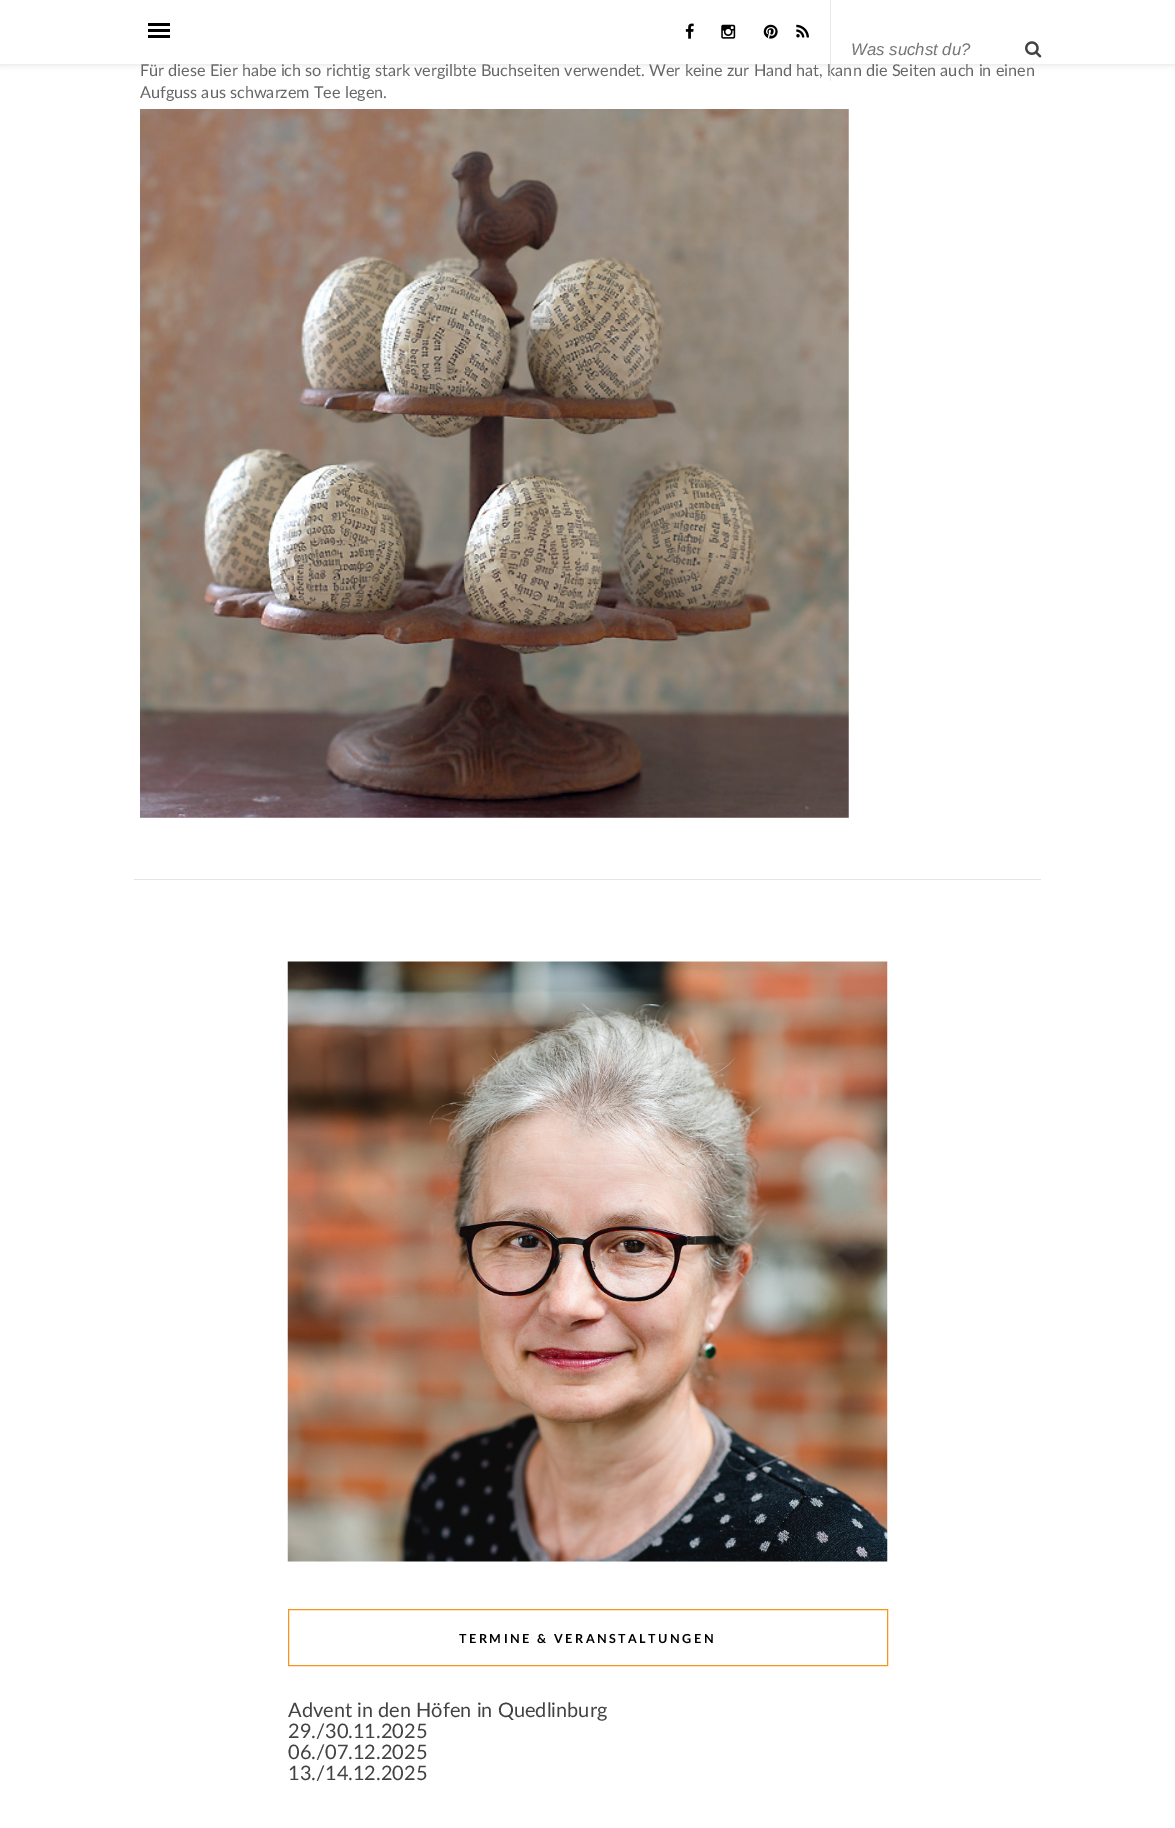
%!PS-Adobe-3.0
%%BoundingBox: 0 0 1175 1828
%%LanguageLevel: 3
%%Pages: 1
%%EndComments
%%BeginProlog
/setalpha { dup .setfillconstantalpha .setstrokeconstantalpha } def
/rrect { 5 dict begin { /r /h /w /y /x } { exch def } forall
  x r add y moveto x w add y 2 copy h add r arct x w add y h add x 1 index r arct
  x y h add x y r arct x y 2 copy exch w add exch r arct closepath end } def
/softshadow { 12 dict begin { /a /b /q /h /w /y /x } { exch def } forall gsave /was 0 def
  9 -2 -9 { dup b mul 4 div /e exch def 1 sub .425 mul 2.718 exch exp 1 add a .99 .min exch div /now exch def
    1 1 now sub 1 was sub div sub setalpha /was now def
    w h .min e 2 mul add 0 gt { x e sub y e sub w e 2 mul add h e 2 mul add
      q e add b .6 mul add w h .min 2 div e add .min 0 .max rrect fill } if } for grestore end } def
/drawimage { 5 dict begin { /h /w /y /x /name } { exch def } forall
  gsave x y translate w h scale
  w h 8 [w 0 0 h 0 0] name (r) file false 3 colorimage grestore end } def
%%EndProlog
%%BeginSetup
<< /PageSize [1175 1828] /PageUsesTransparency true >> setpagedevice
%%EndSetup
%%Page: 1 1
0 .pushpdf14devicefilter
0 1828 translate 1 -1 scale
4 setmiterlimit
1 setgray
0 0 1175 1828 rectfill
0.745 setgray
0 1 1175 64 0 3 0.46 softshadow
1 setgray
0 0 1175 64 rectfill
0 setgray
148 23 22 3 rectfill
148 29 22 3 rectfill
148 35 22 3 rectfill
(images/1.raw) 685 23 9 16 drawimage
(images/2.raw) 721 24 15 15 drawimage
(images/3.raw) 763 24 15 15 drawimage
(images/4.raw) 796 24 13 14 drawimage
(images/5.raw) 1025 41 17 17 drawimage
(images/6.raw) 140 109 709 709 drawimage
0.898 setgray
134 879 907 1 rectfill
(images/7.raw) 287 961 601 601 drawimage
0.969 0.576 0.118 setrgbcolor
288.5 1609.5 599 56 rectstroke
/LiberationSans-Italic [16.75 0 0 -16.75 0 0] selectfont
0.459 setgray
851 55 moveto (Was suchst du?) show
/Lato-Regular [16.25 0 0 -16.25 0 0] selectfont
0.4 setgray
140 76 moveto (Für diese Eier habe ich so richtig stark vergilbte Buchseiten verwendet. Wer keine zur Hand hat, kann die Seiten auch in einen) show
0.91 setgray
830 0 1 81 rectfill
0.4 setgray
140 98 moveto (Aufguss aus schwarzem Tee legen.) show
/Lato-Bold [12.5 0 0 -12.5 0 0] selectfont
0 setgray
459 1643 moveto 2.5 0 (TERMINE & VERANSTALTUNGEN) ashow
/Lato-Regular [20 0 0 -20 0 0] selectfont
0.259 setgray
288 1717 moveto (Advent in den Höfen in Quedlinburg) show
288 1738 moveto (29./30.11.2025) show
288 1759 moveto (06./07.12.2025) show
288 1780 moveto (13./14.12.2025) show
.poppdf14devicefilter showpage
%%EOF
